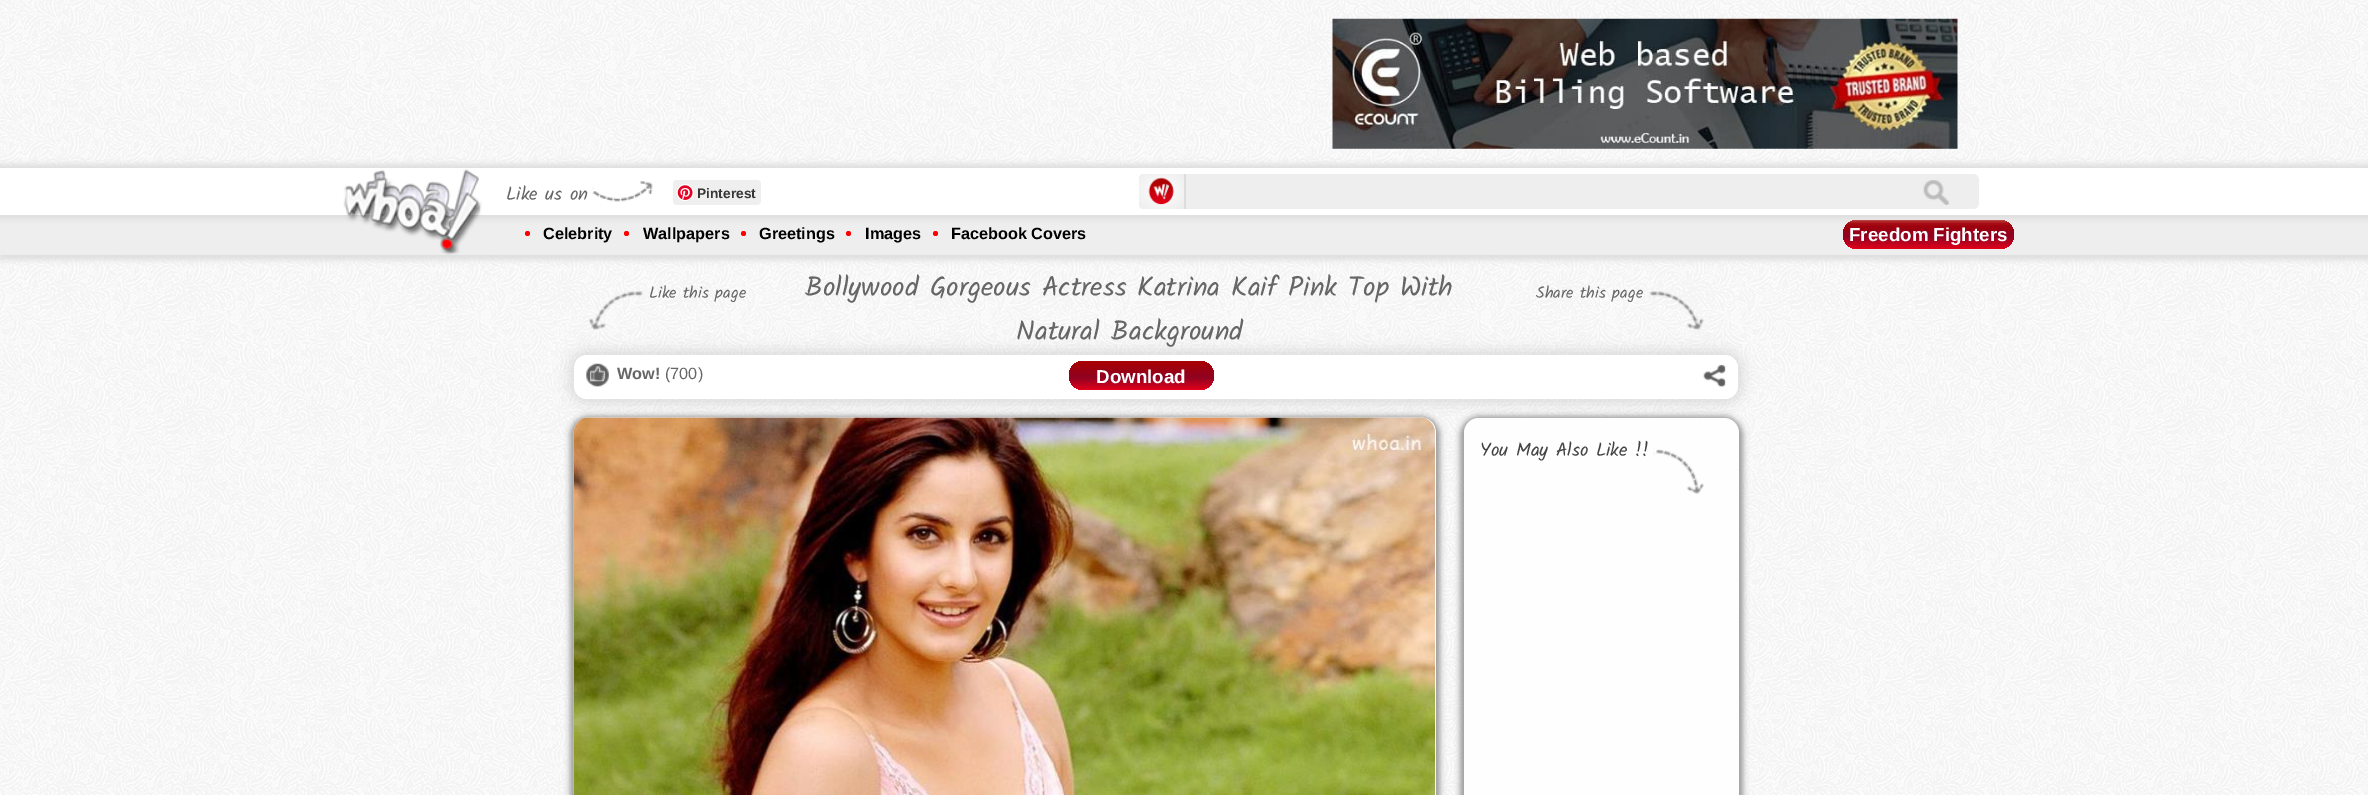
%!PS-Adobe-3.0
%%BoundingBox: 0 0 2368 795
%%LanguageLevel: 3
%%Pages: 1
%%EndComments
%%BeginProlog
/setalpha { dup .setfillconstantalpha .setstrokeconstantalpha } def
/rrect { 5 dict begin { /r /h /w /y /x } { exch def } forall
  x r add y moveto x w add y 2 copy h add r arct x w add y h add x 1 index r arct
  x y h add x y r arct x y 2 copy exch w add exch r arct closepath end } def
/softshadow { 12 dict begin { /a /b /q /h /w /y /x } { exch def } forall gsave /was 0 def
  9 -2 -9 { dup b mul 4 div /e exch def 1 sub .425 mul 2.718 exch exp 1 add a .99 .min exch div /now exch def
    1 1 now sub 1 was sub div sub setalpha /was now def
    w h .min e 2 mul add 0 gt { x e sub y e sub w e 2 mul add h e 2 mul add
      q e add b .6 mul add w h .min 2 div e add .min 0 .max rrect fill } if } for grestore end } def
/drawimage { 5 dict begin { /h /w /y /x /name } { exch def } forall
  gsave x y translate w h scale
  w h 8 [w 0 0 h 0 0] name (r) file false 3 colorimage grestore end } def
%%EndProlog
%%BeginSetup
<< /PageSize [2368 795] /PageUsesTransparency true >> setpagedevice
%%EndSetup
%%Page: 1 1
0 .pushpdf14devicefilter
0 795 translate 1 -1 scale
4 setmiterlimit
1 setgray
0 0 2368 795 rectfill
(images/1.raw) 0 0 2368 795 drawimage
(images/2.raw) 1332 18 626 131 drawimage
0.867 setgray
-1 210 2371 50 0 3 1 softshadow
0.933 setgray
0 215 2368 40 rectfill
gsave 1843 220 171 29 14.5 rrect clip newpath
<< /ShadingType 2 /ColorSpace /DeviceRGB /Coords [1928 220 1928 249] /Extend [true true] /Function << /FunctionType 3 /Domain [0 1] /Functions [<< /FunctionType 2 /Domain [0 1] /C0 [0.663 0 0] /C1 [0.643 0 0.027] /N 1 >> << /FunctionType 2 /Domain [0 1] /C0 [0.643 0 0.027] /C1 [0.561 0.008 0.133] /N 1 >> << /FunctionType 2 /Domain [0 1] /C0 [0.561 0.008 0.133] /C1 [0.882 0 0.102] /N 1 >>] /Bounds [0.11 0.56] /Encode [0 1 0 1 0 1] >> >> shfill grestore
0.867 setgray
-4 164 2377 55 0 3 1 softshadow
1 setgray
0 168 2368 47 rectfill
(images/3.raw) 343 169 139 86 drawimage
(images/4.raw) 592 181 61 21 drawimage
0.937 setgray
673 180 88 25 4 rrect fill
(images/5.raw) 676 184 18 17 drawimage
gsave newpath 1145 174 moveto 1184 174 lineto 1184 209 lineto 1145 209 lineto 1141.5 209 1139 206.5 1139 203 curveto 1139 180 lineto 1139 176.5 1141.5 174 1145 174 curveto closepath clip newpath 1161 191 translate 32 25 scale
<< /ShadingType 3 /ColorSpace /DeviceRGB /Coords [0 0 0 0 0 1] /Extend [true true] /Function << /FunctionType 3 /Domain [0 1] /Functions [<< /FunctionType 2 /Domain [0 1] /C0 [1 1 1] /C1 [0.965 0.965 0.965] /N 1 >> << /FunctionType 2 /Domain [0 1] /C0 [0.965 0.965 0.965] /C1 [0.929 0.929 0.929] /N 1 >>] /Bounds [0.47] /Encode [0 1 0 1] >> >> shfill grestore
0.867 setgray
1184 174 2 35 rectfill
(images/6.raw) 1148 177 26 28 drawimage
0.933 setgray
newpath 1186 174 moveto 1973 174 lineto 1976.5 174 1979 176.5 1979 180 curveto 1979 203 lineto 1979 206.5 1976.5 209 1973 209 curveto 1186 209 lineto closepath fill
(images/7.raw) 1923 180 26 25 drawimage
1 0 0 setrgbcolor
newpath 527.5 233.5 2.5 0 360 arc closepath fill
newpath 626.5 233.5 2.5 0 360 arc closepath fill
newpath 743.5 233.5 2.5 0 360 arc closepath fill
newpath 848.5 233.5 2.5 0 360 arc closepath fill
newpath 935.5 233.5 2.5 0 360 arc closepath fill
0.784 setgray
569 350 1174 54 18 7 0.6 softshadow
(images/8.raw) 588 291 56 39 drawimage
(images/9.raw) 1649 291 55 39 drawimage
1 setgray
574 355 1164 44 13 rrect fill
(images/10.raw) 586 363 23 24 drawimage
gsave 1069 361 145 29 14.5 rrect clip newpath
<< /ShadingType 2 /ColorSpace /DeviceRGB /Coords [1141 361 1141 390] /Extend [true true] /Function << /FunctionType 3 /Domain [0 1] /Functions [<< /FunctionType 2 /Domain [0 1] /C0 [0.663 0 0] /C1 [0.643 0 0.027] /N 1 >> << /FunctionType 2 /Domain [0 1] /C0 [0.643 0 0.027] /C1 [0.561 0.008 0.133] /N 1 >> << /FunctionType 2 /Domain [0 1] /C0 [0.561 0.008 0.133] /C1 [0.882 0 0.102] /N 1 >>] /Bounds [0.11 0.56] /Encode [0 1 0 1 0 1] >> >> shfill grestore
(images/11.raw) 1703 364 23 23 drawimage
0.6 setgray
570 416 870 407 19 3 1 softshadow
0.996 setgray
574 418 862 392 15 rrect fill
(images/12.raw) 573 417 862 378 drawimage
0.6 setgray
1460 416 283 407 19 3 1 softshadow
0.996 setgray
1464 418 275 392 15 rrect fill
(images/13.raw) 1653 449 51 45 drawimage
/Kalam-Regular [18.75 0 0 -18.75 0 0] selectfont
0.4 setgray
506 200 moveto (Like us on) show
/LiberationSans-Bold [13.75 0 0 -13.75 0 0] selectfont
0.212 setgray
697 198 moveto (Pinterest) show
/LiberationSans-Bold [16.25 0 0 -16.25 0 0] selectfont
0 setgray
543 239 moveto (Celebrity) show
643 239 moveto (Wallpapers) show
759 239 moveto (Greetings) show
865 239 moveto (Images) show
951 239 moveto (Facebook Covers) show
/LiberationSans-Bold [18.75 0 0 -18.75 0 0] selectfont
1 setgray
1849 241 moveto (Freedom Fighters) show
/Kalam-Regular [16.25 0 0 -16.25 0 0] selectfont
0.4 setgray
649 298 moveto (Like this page) show
/Kalam-Regular [27.5 0 0 -27.5 0 0] selectfont
805 296 moveto (Bollywood Gorgeous Actress Katrina Kaif Pink Top With) show
1016 340 moveto (Natural Background) show
/Kalam-Regular [16.25 0 0 -16.25 0 0] selectfont
1536 298 moveto (Share this page) show
/LiberationSans-Bold [16.25 0 0 -16.25 0 0] selectfont
617 379 moveto (Wow!) show
/LiberationSans-Regular [16.25 0 0 -16.25 0 0] selectfont
665 379 moveto (\(700\)) show
/LiberationSans-Bold [18.75 0 0 -18.75 0 0] selectfont
1 setgray
1096 383 moveto (Download) show
/Kalam-Regular [18.75 0 0 -18.75 0 0] selectfont
0.267 setgray
1480 456 moveto (You May Also Like !!) show
.poppdf14devicefilter showpage
%%EOF
